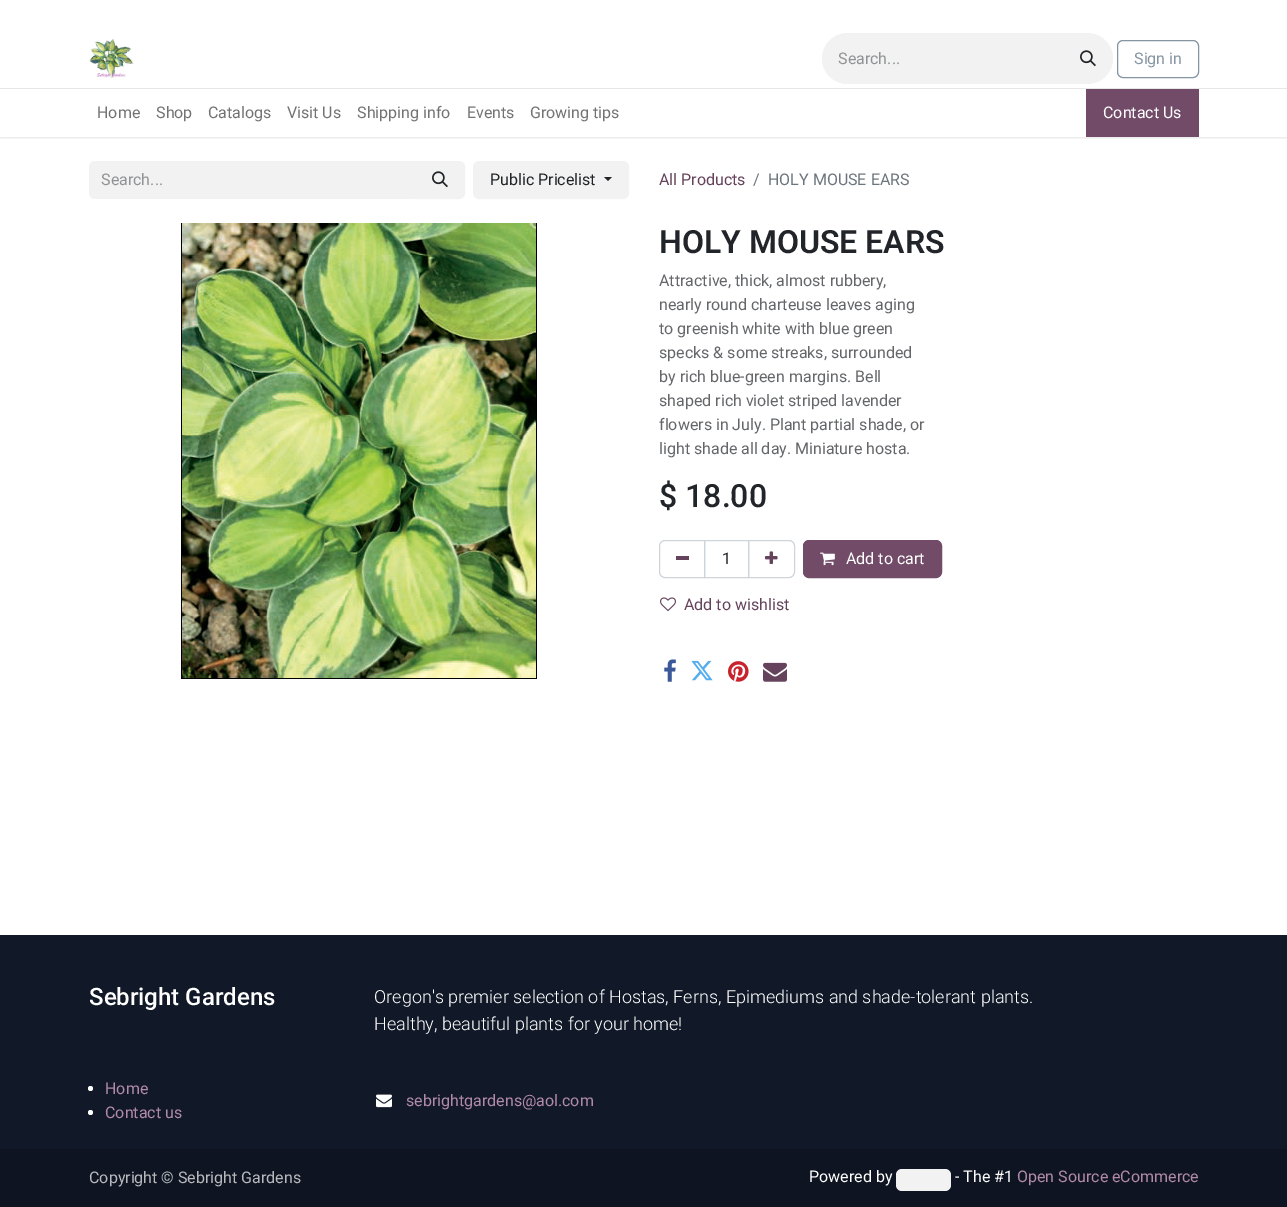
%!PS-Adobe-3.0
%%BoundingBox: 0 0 1287 1207
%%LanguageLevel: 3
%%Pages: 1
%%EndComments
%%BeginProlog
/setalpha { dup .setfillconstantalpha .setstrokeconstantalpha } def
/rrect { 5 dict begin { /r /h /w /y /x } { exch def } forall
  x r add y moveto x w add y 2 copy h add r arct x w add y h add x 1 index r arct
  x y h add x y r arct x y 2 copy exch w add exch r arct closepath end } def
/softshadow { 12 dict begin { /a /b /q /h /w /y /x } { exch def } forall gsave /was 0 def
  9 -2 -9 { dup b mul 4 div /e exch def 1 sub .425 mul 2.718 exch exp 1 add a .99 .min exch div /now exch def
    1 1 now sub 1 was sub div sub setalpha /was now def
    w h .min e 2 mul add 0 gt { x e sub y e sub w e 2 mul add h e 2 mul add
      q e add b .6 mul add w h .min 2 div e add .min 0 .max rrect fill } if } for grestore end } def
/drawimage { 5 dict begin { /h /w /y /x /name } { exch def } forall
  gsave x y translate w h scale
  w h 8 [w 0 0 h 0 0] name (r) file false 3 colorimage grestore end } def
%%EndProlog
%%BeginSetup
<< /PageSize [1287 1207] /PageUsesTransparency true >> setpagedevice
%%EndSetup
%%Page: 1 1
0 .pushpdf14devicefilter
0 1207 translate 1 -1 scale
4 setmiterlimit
1 setgray
0 0 1287 1207 rectfill
gsave
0 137 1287 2 rectclip
0 setgray
0 1 1287 137 0 1.5 0.1 softshadow
grestore
(images/1.raw) 89 39 45 39 drawimage
0.953 0.949 0.949 setrgbcolor
newpath 847.5 33 moveto 1064 33 lineto 1064 84 lineto 847.5 84 lineto 833.5 84 822 72.5 822 58.5 curveto 822 44.5 833.5 33 847.5 33 curveto closepath fill
newpath 1063 33 moveto 1087.5 33 lineto 1101.5 33 1113 44.5 1113 58.5 curveto 1113 72.5 1101.5 84 1087.5 84 curveto 1063 84 lineto closepath fill
(images/2.raw) 1080 50 16 17 drawimage
0.522 0.584 0.635 setrgbcolor
1117.5 40.5 81 37 5.5 rrect stroke
0.902 setgray
0 88 1287 1 rectfill
0.443 0.294 0.404 setrgbcolor
1086 89 113 48 rectfill
0.953 0.949 0.949 setrgbcolor
newpath 95 161 moveto 416 161 lineto 416 199 lineto 95 199 lineto 91.5 199 89 196.5 89 193 curveto 89 167 lineto 89 163.5 91.5 161 95 161 curveto closepath fill
newpath 415.5 161.5 moveto 459 161.5 lineto 462 161.5 464.5 164 464.5 167 curveto 464.5 193 lineto 464.5 196 462 198.5 459 198.5 curveto 415.5 198.5 lineto closepath gsave fill grestore
stroke
(images/2.raw) 432 171 16 17 drawimage
473.5 161.5 155 37 5.5 rrect gsave fill grestore
stroke
0.129 0.145 0.161 setrgbcolor
newpath 604 177 moveto 612 177 lineto 608 181 lineto closepath fill
(images/3.raw) 181 223 356 456 drawimage
0.808 0.831 0.855 setrgbcolor
704.5 540.5 44 37 rectstroke
newpath 665 540.5 moveto 704.5 540.5 lineto 704.5 577.5 lineto 665 577.5 lineto 662 577.5 659.5 575 659.5 572 curveto 659.5 546 lineto 659.5 543 662 540.5 665 540.5 curveto closepath stroke
0.396 0.263 0.361 setrgbcolor
676 556 13 4 rectfill
0.808 0.831 0.855 setrgbcolor
newpath 748.5 540.5 moveto 789 540.5 lineto 792 540.5 794.5 543 794.5 546 curveto 794.5 572 lineto 794.5 575 792 577.5 789 577.5 curveto 748.5 577.5 lineto closepath stroke
(images/4.raw) 765 551 13 13 drawimage
0.443 0.294 0.404 setrgbcolor
803.5 540.5 138 37 5.5 rrect gsave fill grestore
stroke
(images/5.raw) 820 552 15 14 drawimage
(images/6.raw) 660 597 16 15 drawimage
(images/7.raw) 664 659 12 23 drawimage
(images/8.raw) 691 660 22 21 drawimage
(images/9.raw) 728 661 21 21 drawimage
(images/10.raw) 763 662 24 20 drawimage
0.067 0.094 0.153 setrgbcolor
0 935 1287 214 rectfill
1 setgray
newpath 90.5 1088.5 2.5 0 360 arc closepath fill
newpath 90.5 1112.5 2.5 0 360 arc closepath fill
(images/11.raw) 376 1094 16 14 drawimage
0.055 0.078 0.129 setrgbcolor
0 1149 1287 58 rectfill
0.953 0.949 0.949 setrgbcolor
896 1169 55 22 6 rrect fill
/Roboto-Regular [16 0 0 -16 0 0] selectfont
0.565 0.573 0.58 setrgbcolor
838 64 moveto (Search...) show
0.522 0.584 0.635 setrgbcolor
1134 64 moveto (Sign in) show
0.451 setgray
97 118 moveto (Home) show
156 118 moveto (Shop) show
208 118 moveto (Catalogs) show
287 118 moveto (Visit Us) show
357 118 moveto (Shipping info) show
467 118 moveto (Events) show
530 118 moveto (Growing tips) show
1 setgray
1103 118 moveto (Contact Us) show
0.565 0.573 0.58 setrgbcolor
101 185 moveto (Search...) show
0.129 0.145 0.161 setrgbcolor
490 185 moveto (Public Pricelist) show
0.396 0.263 0.361 setrgbcolor
659 185 moveto (All Products) show
0.424 0.459 0.49 setrgbcolor
753 185 moveto (/) show
768 185 moveto (HOLY MOUSE EARS) show
/Roboto-SemiBold [32 0 0 -32 0 0] selectfont
0.129 0.145 0.161 setrgbcolor
659 253 moveto (HOLY MOUSE EARS) show
/Roboto-Regular [16 0 0 -16 0 0] selectfont
0.392 0.4 0.412 setrgbcolor
659 286 moveto (Attractive, thick, almost rubbery,) show
659 310 moveto (nearly round charteuse leaves aging) show
659 334 moveto (to greenish white with blue green) show
659 358 moveto (specks & some streaks, surrounded) show
659 382 moveto (by rich blue-green margins. Bell) show
659 406 moveto (shaped rich violet striped lavender) show
659 430 moveto (flowers in July. Plant partial shade, or) show
659 454 moveto (light shade all day. Miniature hosta.) show
/Roboto-Medium [32 0 0 -32 0 0] selectfont
0.129 0.145 0.161 setrgbcolor
659 507 moveto ($ 18.00) show
/Roboto-Regular [16 0 0 -16 0 0] selectfont
722 564 moveto (1) show
1 setgray
846 564 moveto (Add to cart) show
0.396 0.263 0.361 setrgbcolor
684 610 moveto (Add to wishlist) show
/Roboto-Medium [24 0 0 -24 0 0] selectfont
1 setgray
89 1005 moveto (Sebright Gardens) show
/Roboto-Light [18 0 0 -18 0 0] selectfont
374 1003 moveto (Oregon's premier selection of Hostas, Ferns, Epimediums and shade-tolerant plants.) show
374 1030 moveto (Healthy, beautiful plants for your home!) show
/Roboto-Regular [16 0 0 -16 0 0] selectfont
0.694 0.541 0.655 setrgbcolor
105 1094 moveto (Home) show
105 1118 moveto (Contact us) show
406 1106 moveto (sebrightgardens@aol.com) show
0.718 0.725 0.737 setrgbcolor
89 1183 moveto (Copyright © Sebright Gardens) show
1 setgray
809 1182 moveto (Powered by) show
955 1182 moveto (- The #1) show
0.694 0.541 0.655 setrgbcolor
1017 1182 moveto (Open Source eCommerce) show
.poppdf14devicefilter showpage
%%EOF
